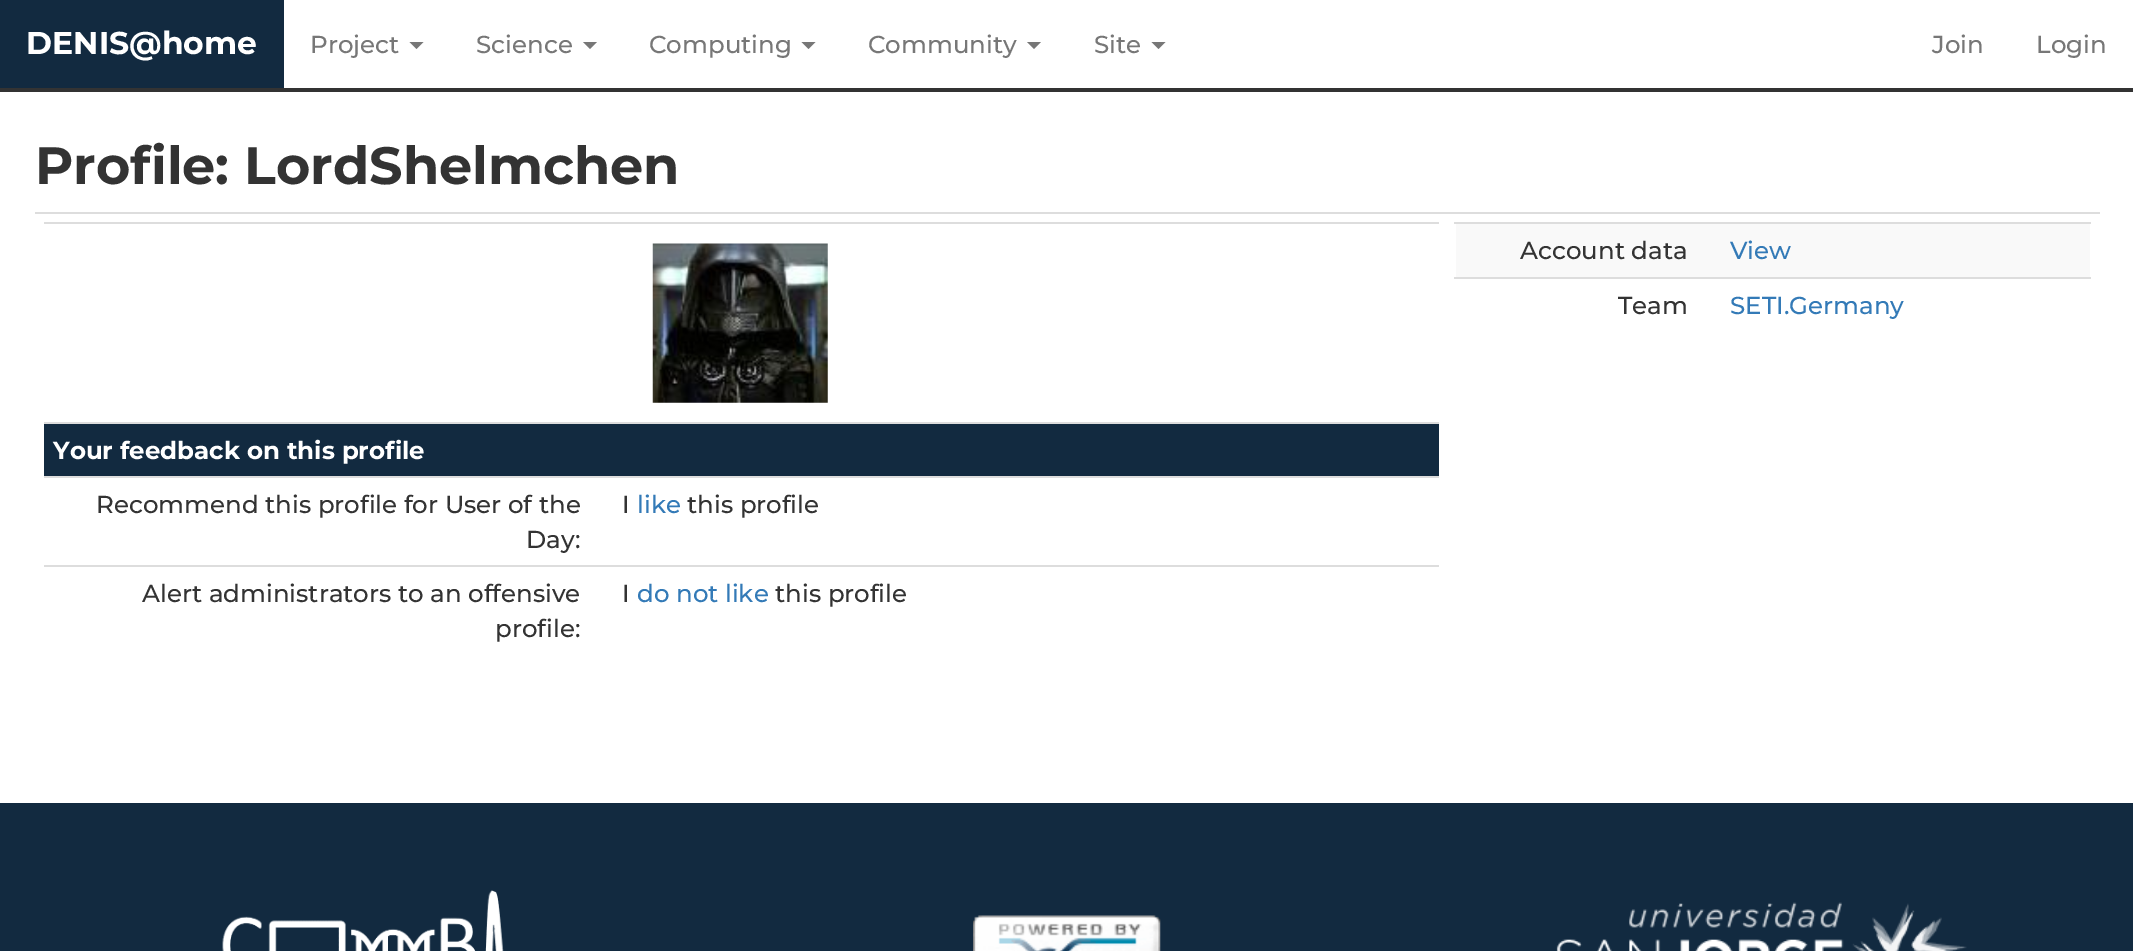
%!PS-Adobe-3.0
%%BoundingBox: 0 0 2133 951
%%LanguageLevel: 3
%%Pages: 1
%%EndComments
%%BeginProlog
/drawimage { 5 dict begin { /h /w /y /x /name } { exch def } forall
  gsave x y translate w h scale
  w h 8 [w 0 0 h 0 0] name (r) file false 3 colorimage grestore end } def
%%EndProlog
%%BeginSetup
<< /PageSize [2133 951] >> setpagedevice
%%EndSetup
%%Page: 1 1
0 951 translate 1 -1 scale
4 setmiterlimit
1 setgray
0 0 2133 951 rectfill
0.2 setgray
0 88 2133 4 rectfill
0.071 0.165 0.251 setrgbcolor
0 0 284 88 rectfill
0.467 setgray
newpath 409.5 42 moveto 423.5 42 lineto 416.5 49 lineto closepath fill
newpath 583 42 moveto 597 42 lineto 590 49 lineto closepath fill
newpath 801.5 42 moveto 815.5 42 lineto 808.5 49 lineto closepath fill
newpath 1027 42 moveto 1041 42 lineto 1034 49 lineto closepath fill
newpath 1151.5 42 moveto 1165.5 42 lineto 1158.5 49 lineto closepath fill
0.867 setgray
35 212 2065 2 rectfill
0.976 setgray
1456 224 634 53 rectfill
0.867 setgray
1454 222 637 2 rectfill
1454 277 637 2 rectfill
44 222 1395 2 rectfill
(images/1.raw) 652 243 176 160 drawimage
0.071 0.165 0.251 setrgbcolor
44 424 1395 52 rectfill
0.867 setgray
44 422 1395 2 rectfill
44 476 1395 2 rectfill
44 565 1395 2 rectfill
0.071 0.165 0.251 setrgbcolor
0 803 2133 148 rectfill
(images/2.raw) 222 890 282 61 drawimage
(images/3.raw) 973 915 188 36 drawimage
(images/4.raw) 1556 902 411 49 drawimage
/Montserrat-Bold [31.5 0 0 -31.5 0 0] selectfont
1 setgray
26 54 moveto (DENIS@home) show
/Montserrat-Medium [24.5 0 0 -24.5 0 0] selectfont
0.467 setgray
310 53 moveto (Project) show
476 53 moveto (Science) show
649 53 moveto (Computing) show
868 53 moveto (Community) show
1094 53 moveto (Site) show
1932 53 moveto (Join) show
2036 53 moveto (Login) show
/Montserrat-Bold [52.5 0 0 -52.5 0 0] selectfont
0.2 setgray
35 184 moveto (Profile: LordShelmchen) show
/Montserrat-Medium [24.5 0 0 -24.5 0 0] selectfont
1520 259 moveto (Account data) show
0.2 0.478 0.718 setrgbcolor
1730 259 moveto (View) show
0.2 setgray
1618 314 moveto (Team) show
0.2 0.478 0.718 setrgbcolor
1730 314 moveto (SETI.Germany) show
/Montserrat-Bold [24.5 0 0 -24.5 0 0] selectfont
1 setgray
53 459 moveto (Your feedback on this profile) show
/Montserrat-Medium [24.5 0 0 -24.5 0 0] selectfont
0.2 setgray
96 513 moveto (Recommend this profile for User of the) show
526 548 moveto (Day:) show
622 513 moveto (I) show
0.2 0.478 0.718 setrgbcolor
637 513 moveto (like) show
0.2 setgray
687 513 moveto (this profile) show
142 602 moveto (Alert administrators to an offensive) show
495 637 moveto (profile:) show
622 602 moveto (I) show
0.2 0.478 0.718 setrgbcolor
637 602 moveto (do not like) show
0.2 setgray
775 602 moveto (this profile) show
showpage
%%EOF
